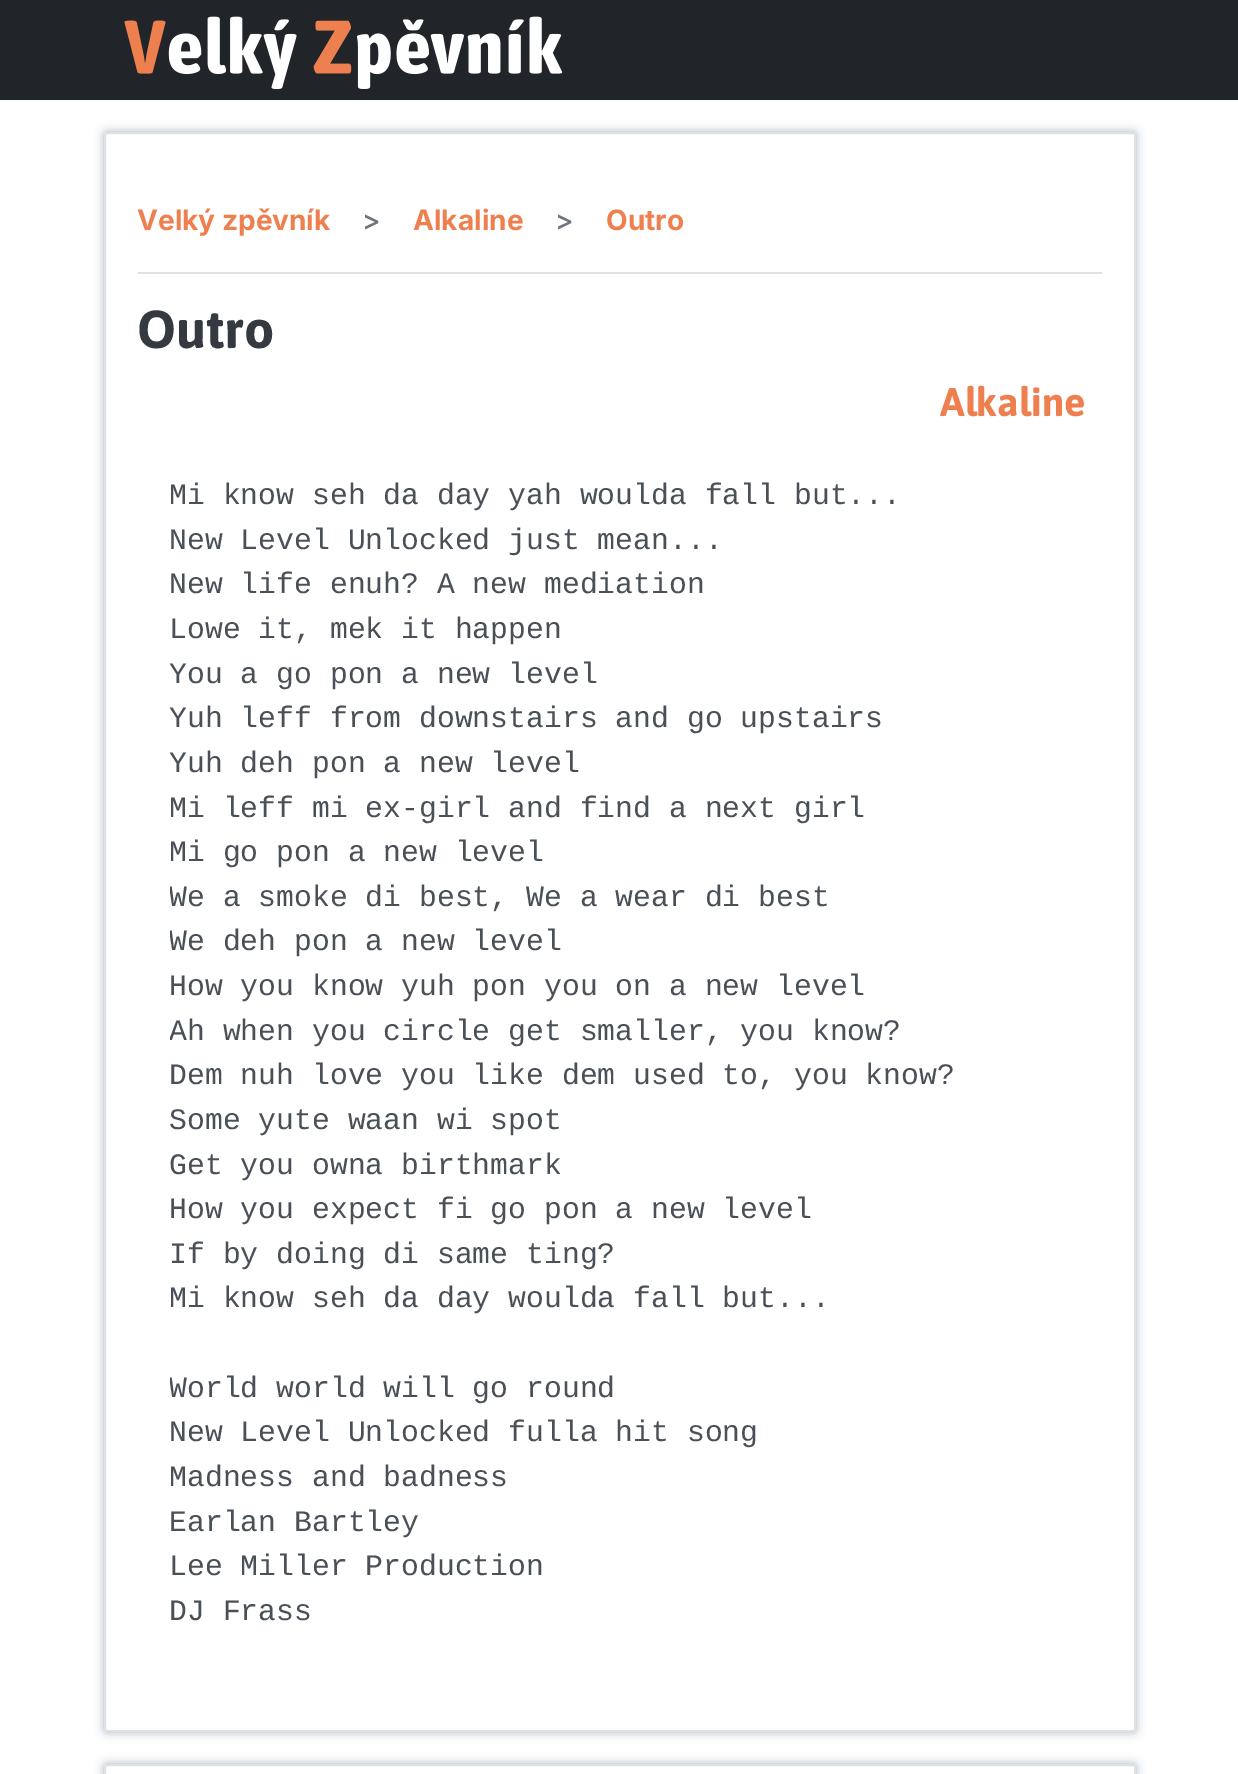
%!PS-Adobe-3.0
%%BoundingBox: 0 0 1238 1774
%%LanguageLevel: 3
%%Pages: 1
%%EndComments
%%BeginProlog
/setalpha { dup .setfillconstantalpha .setstrokeconstantalpha } def
/rrect { 5 dict begin { /r /h /w /y /x } { exch def } forall
  x r add y moveto x w add y 2 copy h add r arct x w add y h add x 1 index r arct
  x y h add x y r arct x y 2 copy exch w add exch r arct closepath end } def
/softshadow { 12 dict begin { /a /b /q /h /w /y /x } { exch def } forall gsave /was 0 def
  9 -2 -9 { dup b mul 4 div /e exch def 1 sub .425 mul 2.718 exch exp 1 add a .99 .min exch div /now exch def
    1 1 now sub 1 was sub div sub setalpha /was now def
    w h .min e 2 mul add 0 gt { x e sub y e sub w e 2 mul add h e 2 mul add
      q e add b .6 mul add w h .min 2 div e add .min 0 .max rrect fill } if } for grestore end } def
/drawimage { 5 dict begin { /h /w /y /x /name } { exch def } forall
  gsave x y translate w h scale
  w h 8 [w 0 0 h 0 0] name (r) file false 3 colorimage grestore end } def
%%EndProlog
%%BeginSetup
<< /PageSize [1238 1774] /PageUsesTransparency true >> setpagedevice
%%EndSetup
%%Page: 1 1
0 .pushpdf14devicefilter
0 1774 translate 1 -1 scale
4 setmiterlimit
1 setgray
0 0 1238 1774 rectfill
0.129 0.145 0.161 setrgbcolor
0 0 1238 100 rectfill
(images/1.raw) 124 16 439 73 drawimage
gsave
newpath 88 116 moveto 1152 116 lineto 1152 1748 lineto 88 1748 lineto closepath 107 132 moveto 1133 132 lineto 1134.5 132 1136 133.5 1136 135 curveto 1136 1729 lineto 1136 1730.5 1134.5 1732 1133 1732 curveto 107 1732 lineto 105.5 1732 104 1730.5 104 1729 curveto 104 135 lineto 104 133.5 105.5 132 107 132 curveto closepath eoclip newpath
0.678 0.71 0.741 setrgbcolor
104 132 1032 1600 3 5 1 softshadow
grestore
0.871 0.886 0.902 setrgbcolor
2 setlinewidth
105 133 1030 1598 2 rrect stroke
138 272 964 2 rectfill
gsave
newpath 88 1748 moveto 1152 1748 lineto 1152 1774 lineto 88 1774 lineto closepath 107 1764 moveto 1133 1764 lineto 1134.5 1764 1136 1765.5 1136 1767 curveto 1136 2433 lineto 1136 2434.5 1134.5 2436 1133 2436 curveto 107 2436 lineto 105.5 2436 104 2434.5 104 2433 curveto 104 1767 lineto 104 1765.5 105.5 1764 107 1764 curveto closepath eoclip newpath
0.678 0.71 0.741 setrgbcolor
104 1764 1032 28 3 5 1 softshadow
grestore
105 1765 1030 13 2 rrect stroke
/Inter-Bold [28 0 0 -28 0 0] selectfont
0.933 0.498 0.306 setrgbcolor
137 230 moveto (Velký zpěvník) show
/Inter-Medium [28 0 0 -28 0 0] selectfont
0.424 0.459 0.49 setrgbcolor
362 230 moveto (>) show
/Inter-Bold [28 0 0 -28 0 0] selectfont
0.933 0.498 0.306 setrgbcolor
413 230 moveto (Alkaline) show
/Inter-Medium [28 0 0 -28 0 0] selectfont
0.424 0.459 0.49 setrgbcolor
555 230 moveto (>) show
/Inter-Bold [28 0 0 -28 0 0] selectfont
0.933 0.498 0.306 setrgbcolor
606 230 moveto (Outro) show
/Asap-Bold [53.5 0 0 -53.5 0 0] selectfont
0.204 0.227 0.251 setrgbcolor
137 348 moveto (Outro) show
/Asap-Bold [40 0 0 -40 0 0] selectfont
0.933 0.498 0.306 setrgbcolor
940 416 moveto (Alkaline) show
/LiberationMono-Regular [29.75 0 0 -29.75 0 0] selectfont
0.286 0.314 0.341 setrgbcolor
169 504 moveto (Mi know seh da day yah woulda fall but...) show
169 549 moveto (New Level Unlocked just mean...) show
169 593 moveto (New life enuh? A new mediation) show
169 638 moveto (Lowe it, mek it happen) show
169 683 moveto (You a go pon a new level) show
169 727 moveto (Yuh leff from downstairs and go upstairs) show
169 772 moveto (Yuh deh pon a new level) show
169 817 moveto (Mi leff mi ex-girl and find a next girl) show
169 861 moveto (Mi go pon a new level) show
gsave
170 474 932 1160 rectclip
169 906 moveto (We a smoke di best, We a wear di best) show
169 950 moveto (We deh pon a new level) show
grestore
169 995 moveto (How you know yuh pon you on a new level) show
gsave
170 474 932 1160 rectclip
169 1040 moveto (Ah when you circle get smaller, you know?) show
grestore
169 1084 moveto (Dem nuh love you like dem used to, you know?) show
169 1129 moveto (Some yute waan wi spot) show
169 1174 moveto (Get you owna birthmark) show
169 1218 moveto (How you expect fi go pon a new level) show
169 1263 moveto (If by doing di same ting?) show
169 1307 moveto (Mi know seh da day woulda fall but...) show
gsave
170 474 932 1160 rectclip
169 1397 moveto (World world will go round) show
grestore
169 1441 moveto (New Level Unlocked fulla hit song) show
169 1486 moveto (Madness and badness) show
169 1531 moveto (Earlan Bartley) show
169 1575 moveto (Lee Miller Production) show
169 1620 moveto (DJ Frass) show
.poppdf14devicefilter showpage
%%EOF
